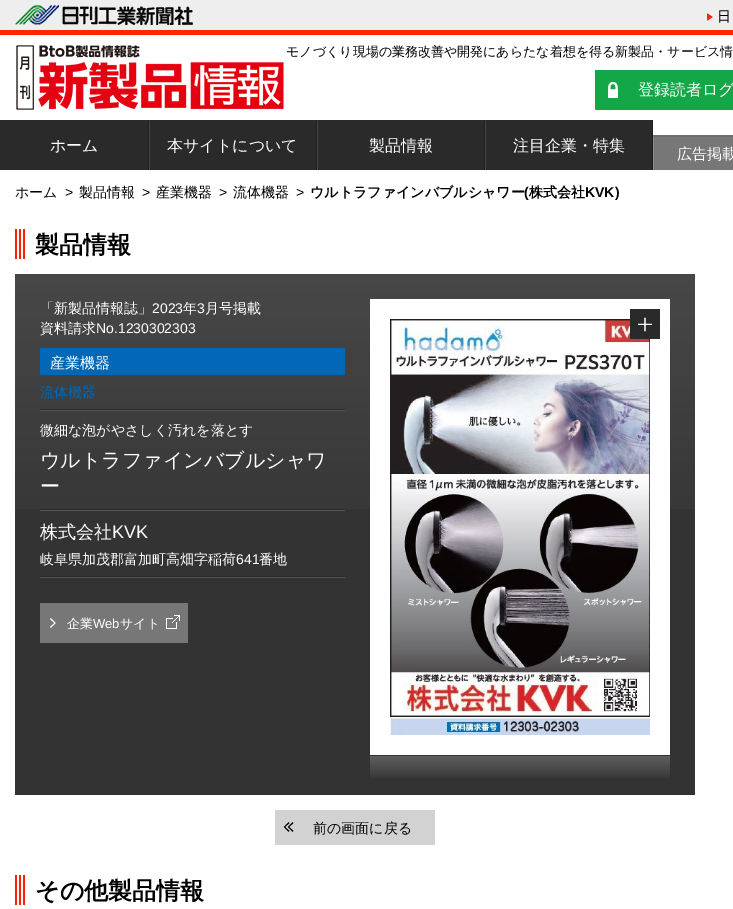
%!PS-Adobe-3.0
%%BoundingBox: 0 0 733 909
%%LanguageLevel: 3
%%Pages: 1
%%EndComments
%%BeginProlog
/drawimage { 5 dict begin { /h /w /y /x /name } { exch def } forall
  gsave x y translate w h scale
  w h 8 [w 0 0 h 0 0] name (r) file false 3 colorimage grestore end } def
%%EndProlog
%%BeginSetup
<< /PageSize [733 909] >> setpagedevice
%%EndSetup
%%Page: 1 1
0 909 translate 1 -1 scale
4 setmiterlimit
1 setgray
0 0 733 909 rectfill
0.933 setgray
0 0 733 30 rectfill
1 0.145 0 setrgbcolor
0 30 733 5 rectfill
(images/1.raw) 15 5 178 20 drawimage
(images/2.raw) 707 13 6 8 drawimage
(images/3.raw) 16 45 268 65 drawimage
0.078 0.655 0.282 setrgbcolor
595 70 138 40 rectfill
(images/4.raw) 608 82 10 16 drawimage
0.165 setgray
0 120 653 50 rectfill
0.122 setgray
newpath 149 120 moveto 149 170 lineto 148 170 lineto 148 122 lineto closepath fill
newpath 317 120 moveto 317 170 lineto 316 170 lineto 316 122 lineto closepath fill
0.275 setgray
newpath 149 170 moveto 149 120 lineto 150 122 lineto 150 170 lineto closepath fill
0.122 setgray
newpath 485 120 moveto 485 170 lineto 484 170 lineto 484 122 lineto closepath fill
0.275 setgray
newpath 317 170 moveto 317 120 lineto 318 122 lineto 318 170 lineto closepath fill
0.122 setgray
newpath 653 120 moveto 653 170 lineto 652 170 lineto 652 122 lineto closepath fill
0.275 setgray
newpath 485 170 moveto 485 120 lineto 486 122 lineto 486 170 lineto closepath fill
0.467 setgray
653 135 80 35 rectfill
0.431 setgray
newpath 653 135 moveto 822 135 lineto 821 137 lineto 654 137 lineto closepath fill
0.545 setgray
newpath 653 170 moveto 653 135 lineto 654 137 lineto 654 170 lineto closepath fill
(images/5.raw) 15 229 10 30 drawimage
0.2 setgray
15 274 680 521 rectfill
(images/6.raw) 15 274 680 235 drawimage
0.333 setgray
40 410 305 1 rectfill
0 0.408 0.718 setrgbcolor
40 348 305 27 rectfill
0.165 setgray
40 409 305 1 rectfill
40 509 305 1 rectfill
0.333 setgray
40 510 305 1 rectfill
40 577 305 1 rectfill
0.165 setgray
40 576 305 1 rectfill
0.467 setgray
40 603 148 40 rectfill
(images/7.raw) 50 618 6 10 drawimage
(images/8.raw) 166 615 14 14 drawimage
(images/9.raw) 370 756 300 22 drawimage
1 setgray
370 299 300 456 rectfill
(images/11.raw) 390 319 260 416 drawimage
(images/10.raw) 630 309 30 30 drawimage
0.824 setgray
275 810 160 35 rectfill
(images/12.raw) 283 822 11 10 drawimage
(images/5.raw) 15 875 10 30 drawimage
/WenQuanYiZenHei-Medium [14 0 0 -14 0 0] selectfont
0 setgray
717 21 moveto (日) show
/WenQuanYiZenHei-Medium [13 0 0 -13 0 0] selectfont
286 56 moveto (モノづくり現場の業務改善や開発にあらたな着想を得る新製品・サービス情) show
/WenQuanYiZenHei-Medium [16 0 0 -16 0 0] selectfont
1 setgray
638 95 moveto (登録読者ログ) show
50 151 moveto (ホーム) show
167 151 moveto (本サイトについて) show
369 151 moveto (製品情報) show
513 151 moveto (注目企業・特集) show
/WenQuanYiZenHei-Medium [15 0 0 -15 0 0] selectfont
677 159 moveto (広告掲載) show
/WenQuanYiZenHei-Medium [14 0 0 -14 0 0] selectfont
0 setgray
15 197 moveto (ホーム) show
/LiberationSans-Regular [14 0 0 -14 0 0] selectfont
65 197 moveto (>) show
/WenQuanYiZenHei-Medium [14 0 0 -14 0 0] selectfont
79 197 moveto (製品情報) show
/LiberationSans-Regular [14 0 0 -14 0 0] selectfont
142 197 moveto (>) show
/WenQuanYiZenHei-Medium [14 0 0 -14 0 0] selectfont
156 197 moveto (産業機器) show
/LiberationSans-Regular [14 0 0 -14 0 0] selectfont
219 197 moveto (>) show
/WenQuanYiZenHei-Medium [14 0 0 -14 0 0] selectfont
233 197 moveto (流体機器) show
/LiberationSans-Regular [14 0 0 -14 0 0] selectfont
296 197 moveto (>) show
/WenQuanYiZenHei-Bold [14 0 0 -14 0 0] selectfont
310 197 moveto (ウルトラファインバブルシャワー) show
/LiberationSans-Bold [14 0 0 -14 0 0] selectfont
524 197 moveto (\() show
/WenQuanYiZenHei-Bold [14 0 0 -14 0 0] selectfont
529 197 moveto (株式会社) show
/LiberationSans-Bold [14 0 0 -14 0 0] selectfont
585 197 moveto (KVK\)) show
/WenQuanYiZenHei-Bold [24 0 0 -24 0 0] selectfont
35 253 moveto (製品情報) show
/WenQuanYiZenHei-Medium [14 0 0 -14 0 0] selectfont
1 setgray
40 313 moveto (「新製品情報誌」) show
/LiberationSans-Regular [14 0 0 -14 0 0] selectfont
152 313 moveto (2023) show
/WenQuanYiZenHei-Medium [14 0 0 -14 0 0] selectfont
183 313 moveto (年) show
/LiberationSans-Regular [14 0 0 -14 0 0] selectfont
197 313 moveto (3) show
/WenQuanYiZenHei-Medium [14 0 0 -14 0 0] selectfont
205 313 moveto (月号掲載) show
40 333 moveto (資料請求) show
/LiberationSans-Regular [14 0 0 -14 0 0] selectfont
96 333 moveto (No.1230302303) show
/WenQuanYiZenHei-Medium [15 0 0 -15 0 0] selectfont
50 368 moveto (産業機器) show
/WenQuanYiZenHei-Medium [14 0 0 -14 0 0] selectfont
0 0.408 0.718 setrgbcolor
40 397 moveto (流体機器) show
1 setgray
40 435 moveto (微細な泡がやさしく汚れを落とす) show
/WenQuanYiZenHei-Medium [20 0 0 -20 0 0] selectfont
40 467 moveto (ウルトラファインバブルシャワ) show
40 493 moveto (ー) show
/WenQuanYiZenHei-Medium [18 0 0 -18 0 0] selectfont
40 538 moveto (株式会社) show
/LiberationSans-Regular [18 0 0 -18 0 0] selectfont
112 538 moveto (KVK) show
/WenQuanYiZenHei-Medium [14 0 0 -14 0 0] selectfont
40 564 moveto (岐阜県加茂郡富加町高畑字稲荷) show
/LiberationSans-Regular [14 0 0 -14 0 0] selectfont
236 564 moveto (641) show
/WenQuanYiZenHei-Medium [14 0 0 -14 0 0] selectfont
259 564 moveto (番地) show
/WenQuanYiZenHei-Medium [13 0 0 -13 0 0] selectfont
67 628 moveto (企業) show
/LiberationSans-Regular [13 0 0 -13 0 0] selectfont
93 628 moveto (Web) show
/WenQuanYiZenHei-Medium [13 0 0 -13 0 0] selectfont
120 628 moveto (サイト) show
/WenQuanYiZenHei-Medium [14 0 0 -14 0 0] selectfont
0 setgray
313 833 moveto (前の画面に戻る) show
/WenQuanYiZenHei-Bold [24 0 0 -24 0 0] selectfont
35 899 moveto (その他製品情報) show
showpage
%%EOF
